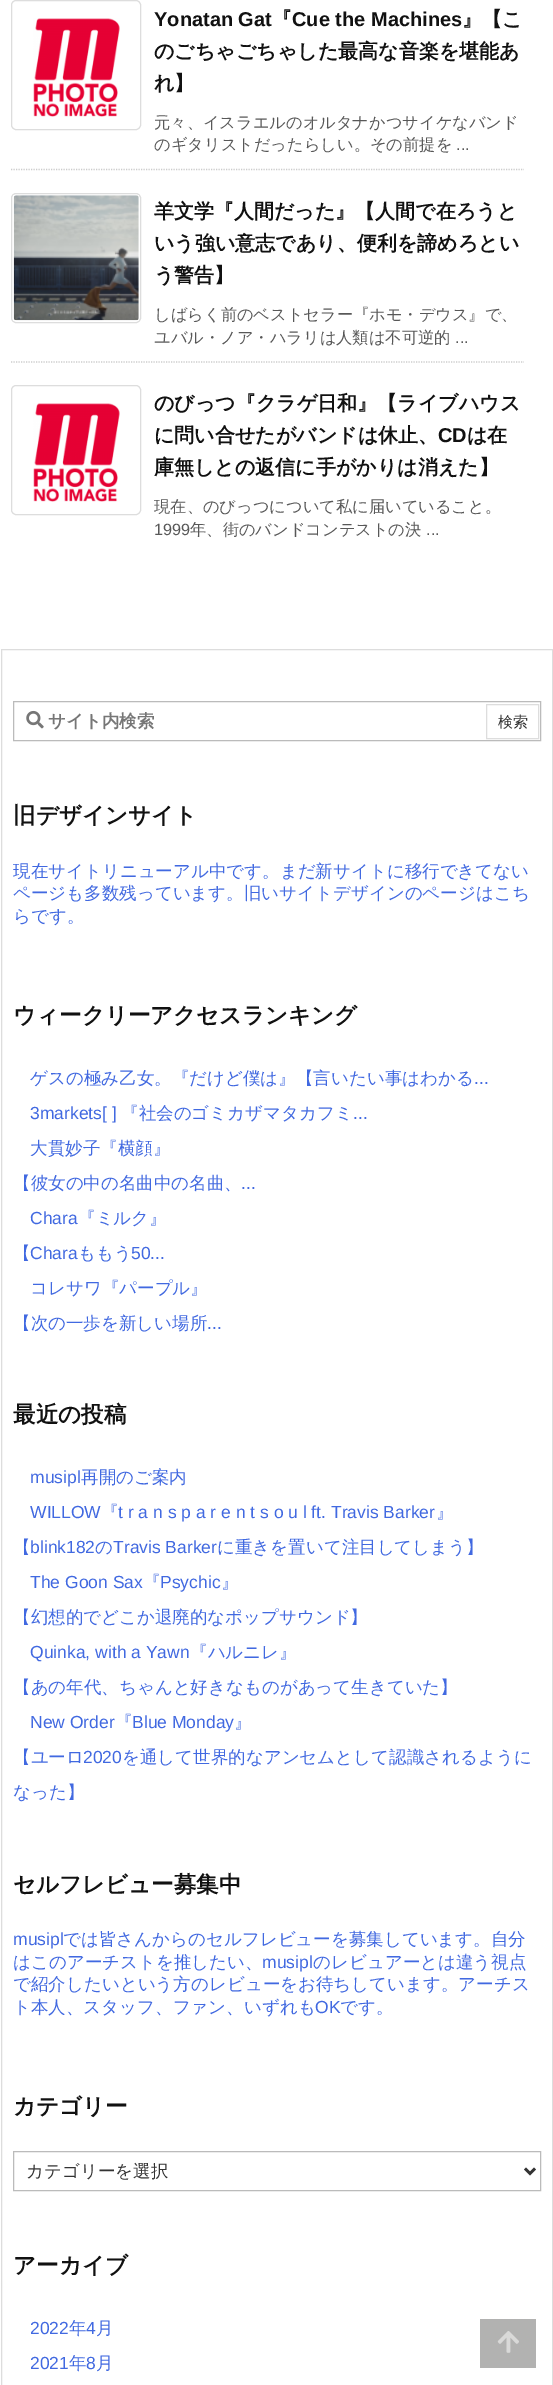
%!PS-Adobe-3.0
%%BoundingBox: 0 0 553 2385
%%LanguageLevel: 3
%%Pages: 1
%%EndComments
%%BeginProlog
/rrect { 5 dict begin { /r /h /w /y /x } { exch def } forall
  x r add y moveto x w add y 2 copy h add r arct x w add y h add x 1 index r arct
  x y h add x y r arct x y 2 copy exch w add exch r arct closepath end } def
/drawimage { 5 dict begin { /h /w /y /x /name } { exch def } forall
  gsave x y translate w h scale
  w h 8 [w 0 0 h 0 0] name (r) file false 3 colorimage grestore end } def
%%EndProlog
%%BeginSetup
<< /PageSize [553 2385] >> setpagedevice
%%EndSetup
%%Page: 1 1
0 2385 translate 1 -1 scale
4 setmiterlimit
1 setgray
0 0 553 2385 rectfill
0.867 setgray
11.5 0.5 129 129 4.5 rrect stroke
(images/1.raw) 33 18 87 99 drawimage
0.8 setgray
1.2 setlinewidth
[1.25 1.25] 0 setdash
newpath 11 169.5 moveto 524 169.5 lineto stroke
0.867 setgray
1 setlinewidth
[] 0 setdash
11.5 193.5 129 129 4.5 rrect stroke
(images/2.raw) 13 195 126 126 drawimage
0.8 setgray
1.2 setlinewidth
[1.25 1.25] 0 setdash
newpath 11 362 moveto 524 362 lineto stroke
0.867 setgray
1 setlinewidth
[] 0 setdash
11.5 385.5 129 129 4.5 rrect stroke
(images/3.raw) 33 403 87 99 drawimage
1.5 649.5 551 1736 rectstroke
0.733 setgray
13.5 701.5 527 39 rectstroke
(images/4.raw) 26 710 18 19 drawimage
0.867 setgray
486.5 704.5 52 34 rectstroke
0.733 setgray
13.5 2151.5 527 39 rectstroke
0.2 setgray
2.5 setlinewidth
newpath 525 2168.5 moveto 530 2173.5 lineto 535 2168.5 lineto stroke
0.698 0.698 0.694 setrgbcolor
480 2319 56 49 rectfill
(images/5.raw) 497 2331 22 22 drawimage
/LiberationSans-Bold [20 0 0 -20 0 0] selectfont
0.067 setgray
154 26 moveto (Yonatan Gat) show
/WenQuanYiZenHei-Bold [20 0 0 -20 0 0] selectfont
272 26 moveto (『) show
/LiberationSans-Bold [20 0 0 -20 0 0] selectfont
292 26 moveto (Cue the Machines) show
/WenQuanYiZenHei-Bold [20 0 0 -20 0 0] selectfont
462 26 moveto (』【こ) show
154 58 moveto (のごちゃごちゃした最高な音楽を堪能あ) show
154 90 moveto (れ】) show
/WenQuanYiZenHei-Medium [16.25 0 0 -16.25 0 0] selectfont
0.345 setgray
154 128 moveto (元々、イスラエルのオルタナかつサイケなバンド) show
154 150 moveto (のギタリストだったらしい。その前提を) show
/LiberationSans-Regular [16.25 0 0 -16.25 0 0] selectfont
456 150 moveto (...) show
/WenQuanYiZenHei-Bold [20 0 0 -20 0 0] selectfont
0.067 setgray
154 218 moveto (羊文学『人間だった』【人間で在ろうと) show
154 250 moveto (いう強い意志であり、便利を諦めろとい) show
154 282 moveto (う警告】) show
/WenQuanYiZenHei-Medium [16.25 0 0 -16.25 0 0] selectfont
0.345 setgray
154 320 moveto (しばらく前のベストセラー『ホモ・デウス』で、) show
154 343 moveto (ユバル・ノア・ハラリは人類は不可逆的) show
/LiberationSans-Regular [16.25 0 0 -16.25 0 0] selectfont
455 343 moveto (...) show
/WenQuanYiZenHei-Bold [20 0 0 -20 0 0] selectfont
0.067 setgray
154 410 moveto (のびっつ『クラゲ日和』【ライブハウス) show
154 442 moveto (に問い合せたがバンドは休止、) show
/LiberationSans-Bold [20 0 0 -20 0 0] selectfont
438 442 moveto (CD) show
/WenQuanYiZenHei-Bold [20 0 0 -20 0 0] selectfont
467 442 moveto (は在) show
154 474 moveto (庫無しとの返信に手がかりは消えた】) show
/WenQuanYiZenHei-Medium [16.25 0 0 -16.25 0 0] selectfont
0.345 setgray
154 512 moveto (現在、のびっつについて私に届いていること。) show
/LiberationSans-Regular [16.25 0 0 -16.25 0 0] selectfont
154 535 moveto (1999) show
/WenQuanYiZenHei-Medium [16.25 0 0 -16.25 0 0] selectfont
190 535 moveto (年、街のバンドコンテストの決) show
/LiberationSans-Regular [16.25 0 0 -16.25 0 0] selectfont
426 535 moveto (...) show
/WenQuanYiZenHei-Bold [17.5 0 0 -17.5 0 0] selectfont
0.463 setgray
48 727 moveto (サイト内検索) show
/WenQuanYiZenHei-Medium [15 0 0 -15 0 0] selectfont
0.2 setgray
498 727 moveto (検索) show
/WenQuanYiZenHei-Bold [22.5 0 0 -22.5 0 0] selectfont
0.067 setgray
13 823 moveto (旧デザインサイト) show
/WenQuanYiZenHei-Medium [17.5 0 0 -17.5 0 0] selectfont
0.255 0.412 0.882 setrgbcolor
13 877 moveto (現在サイトリニューアル中です。まだ新サイトに移行できてない) show
13 899 moveto (ページも多数残っています。旧いサイトデザインのページはこち) show
13 922 moveto (らです。) show
/WenQuanYiZenHei-Bold [22.5 0 0 -22.5 0 0] selectfont
0.067 setgray
13 1023 moveto (ウィークリーアクセスランキング) show
/WenQuanYiZenHei-Medium [17.5 0 0 -17.5 0 0] selectfont
0.255 0.412 0.882 setrgbcolor
30 1084 moveto (ゲスの極み乙女。『だけど僕は』【言いたい事はわかる) show
/LiberationSans-Regular [17.5 0 0 -17.5 0 0] selectfont
474 1084 moveto (...) show
30 1119 moveto (3markets[ ]) show
/WenQuanYiZenHei-Medium [17.5 0 0 -17.5 0 0] selectfont
121 1119 moveto (『社会のゴミカザマタカフミ) show
/LiberationSans-Regular [17.5 0 0 -17.5 0 0] selectfont
353 1119 moveto (...) show
/WenQuanYiZenHei-Medium [17.5 0 0 -17.5 0 0] selectfont
30 1154 moveto (大貫妙子『横顔』) show
13 1189 moveto (【彼女の中の名曲中の名曲、) show
/LiberationSans-Regular [17.5 0 0 -17.5 0 0] selectfont
241 1189 moveto (...) show
30 1224 moveto (Chara) show
/WenQuanYiZenHei-Medium [17.5 0 0 -17.5 0 0] selectfont
78 1224 moveto (『ミルク』) show
13 1259 moveto (【) show
/LiberationSans-Regular [17.5 0 0 -17.5 0 0] selectfont
30 1259 moveto (Chara) show
/WenQuanYiZenHei-Medium [17.5 0 0 -17.5 0 0] selectfont
78 1259 moveto (ももう) show
/LiberationSans-Regular [17.5 0 0 -17.5 0 0] selectfont
131 1259 moveto (50...) show
/WenQuanYiZenHei-Medium [17.5 0 0 -17.5 0 0] selectfont
30 1294 moveto (コレサワ『パープル』) show
13 1329 moveto (【次の一歩を新しい場所) show
/LiberationSans-Regular [17.5 0 0 -17.5 0 0] selectfont
207 1329 moveto (...) show
/WenQuanYiZenHei-Bold [22.5 0 0 -22.5 0 0] selectfont
0.067 setgray
13 1422 moveto (最近の投稿) show
/LiberationSans-Regular [17.5 0 0 -17.5 0 0] selectfont
0.255 0.412 0.882 setrgbcolor
30 1483 moveto (musipl) show
/WenQuanYiZenHei-Medium [17.5 0 0 -17.5 0 0] selectfont
81 1483 moveto (再開のご案内) show
/LiberationSans-Regular [17.5 0 0 -17.5 0 0] selectfont
30 1518 moveto (WILLOW) show
/WenQuanYiZenHei-Medium [17.5 0 0 -17.5 0 0] selectfont
101 1518 moveto (『) show
/LiberationSans-Regular [17.5 0 0 -17.5 0 0] selectfont
118 1518 moveto (t r a n s p a r e n t s o u l ft. Travis Barker) show
/WenQuanYiZenHei-Medium [17.5 0 0 -17.5 0 0] selectfont
436 1518 moveto (』) show
13 1553 moveto (【) show
/LiberationSans-Regular [17.5 0 0 -17.5 0 0] selectfont
30 1553 moveto (blink182) show
/WenQuanYiZenHei-Medium [17.5 0 0 -17.5 0 0] selectfont
95 1553 moveto (の) show
/LiberationSans-Regular [17.5 0 0 -17.5 0 0] selectfont
113 1553 moveto (Travis Barker) show
/WenQuanYiZenHei-Medium [17.5 0 0 -17.5 0 0] selectfont
217 1553 moveto (に重きを置いて注目してしまう】) show
/LiberationSans-Regular [17.5 0 0 -17.5 0 0] selectfont
30 1588 moveto (The Goon Sax) show
/WenQuanYiZenHei-Medium [17.5 0 0 -17.5 0 0] selectfont
143 1588 moveto (『) show
/LiberationSans-Regular [17.5 0 0 -17.5 0 0] selectfont
160 1588 moveto (Psychic) show
/WenQuanYiZenHei-Medium [17.5 0 0 -17.5 0 0] selectfont
221 1588 moveto (』) show
13 1623 moveto (【幻想的でどこか退廃的なポップサウンド】) show
/LiberationSans-Regular [17.5 0 0 -17.5 0 0] selectfont
30 1658 moveto (Quinka, with a Yawn) show
/WenQuanYiZenHei-Medium [17.5 0 0 -17.5 0 0] selectfont
190 1658 moveto (『ハルニレ』) show
13 1693 moveto (【あの年代、ちゃんと好きなものがあって生きていた】) show
/LiberationSans-Regular [17.5 0 0 -17.5 0 0] selectfont
30 1728 moveto (New Order) show
/WenQuanYiZenHei-Medium [17.5 0 0 -17.5 0 0] selectfont
115 1728 moveto (『) show
/LiberationSans-Regular [17.5 0 0 -17.5 0 0] selectfont
132 1728 moveto (Blue Monday) show
/WenQuanYiZenHei-Medium [17.5 0 0 -17.5 0 0] selectfont
234 1728 moveto (』) show
13 1763 moveto (【ユーロ) show
/LiberationSans-Regular [17.5 0 0 -17.5 0 0] selectfont
83 1763 moveto (2020) show
/WenQuanYiZenHei-Medium [17.5 0 0 -17.5 0 0] selectfont
122 1763 moveto (を通して世界的なアンセムとして認識されるように) show
13 1798 moveto (なった】) show
/WenQuanYiZenHei-Bold [22.5 0 0 -22.5 0 0] selectfont
0.067 setgray
13 1892 moveto (セルフレビュー募集中) show
/LiberationSans-Regular [17.5 0 0 -17.5 0 0] selectfont
0.255 0.412 0.882 setrgbcolor
13 1945 moveto (musipl) show
/WenQuanYiZenHei-Medium [17.5 0 0 -17.5 0 0] selectfont
63 1945 moveto (では皆さんからのセルフレビューを募集しています。自分) show
13 1968 moveto (はこのアーチストを推したい、) show
/LiberationSans-Regular [17.5 0 0 -17.5 0 0] selectfont
262 1968 moveto (musipl) show
/WenQuanYiZenHei-Medium [17.5 0 0 -17.5 0 0] selectfont
313 1968 moveto (のレビュアーとは違う視点) show
13 1990 moveto (で紹介したいという方のレビューをお待ちしています。アーチス) show
13 2013 moveto (ト本人、スタッフ、ファン、いずれも) show
/LiberationSans-Regular [17.5 0 0 -17.5 0 0] selectfont
315 2013 moveto (OK) show
/WenQuanYiZenHei-Medium [17.5 0 0 -17.5 0 0] selectfont
340 2013 moveto (です。) show
/WenQuanYiZenHei-Bold [22.5 0 0 -22.5 0 0] selectfont
0.067 setgray
13 2114 moveto (カテゴリー) show
/WenQuanYiZenHei-Medium [17.5 0 0 -17.5 0 0] selectfont
0.2 setgray
26 2177 moveto (カテゴリーを選択) show
/WenQuanYiZenHei-Bold [22.5 0 0 -22.5 0 0] selectfont
0.067 setgray
13 2273 moveto (アーカイブ) show
/LiberationSans-Regular [17.5 0 0 -17.5 0 0] selectfont
0.255 0.412 0.882 setrgbcolor
30 2334 moveto (2022) show
/WenQuanYiZenHei-Medium [17.5 0 0 -17.5 0 0] selectfont
69 2334 moveto (年) show
/LiberationSans-Regular [17.5 0 0 -17.5 0 0] selectfont
86 2334 moveto (4) show
/WenQuanYiZenHei-Medium [17.5 0 0 -17.5 0 0] selectfont
96 2334 moveto (月) show
/LiberationSans-Regular [17.5 0 0 -17.5 0 0] selectfont
30 2369 moveto (2021) show
/WenQuanYiZenHei-Medium [17.5 0 0 -17.5 0 0] selectfont
69 2369 moveto (年) show
/LiberationSans-Regular [17.5 0 0 -17.5 0 0] selectfont
86 2369 moveto (8) show
/WenQuanYiZenHei-Medium [17.5 0 0 -17.5 0 0] selectfont
96 2369 moveto (月) show
showpage
%%EOF
